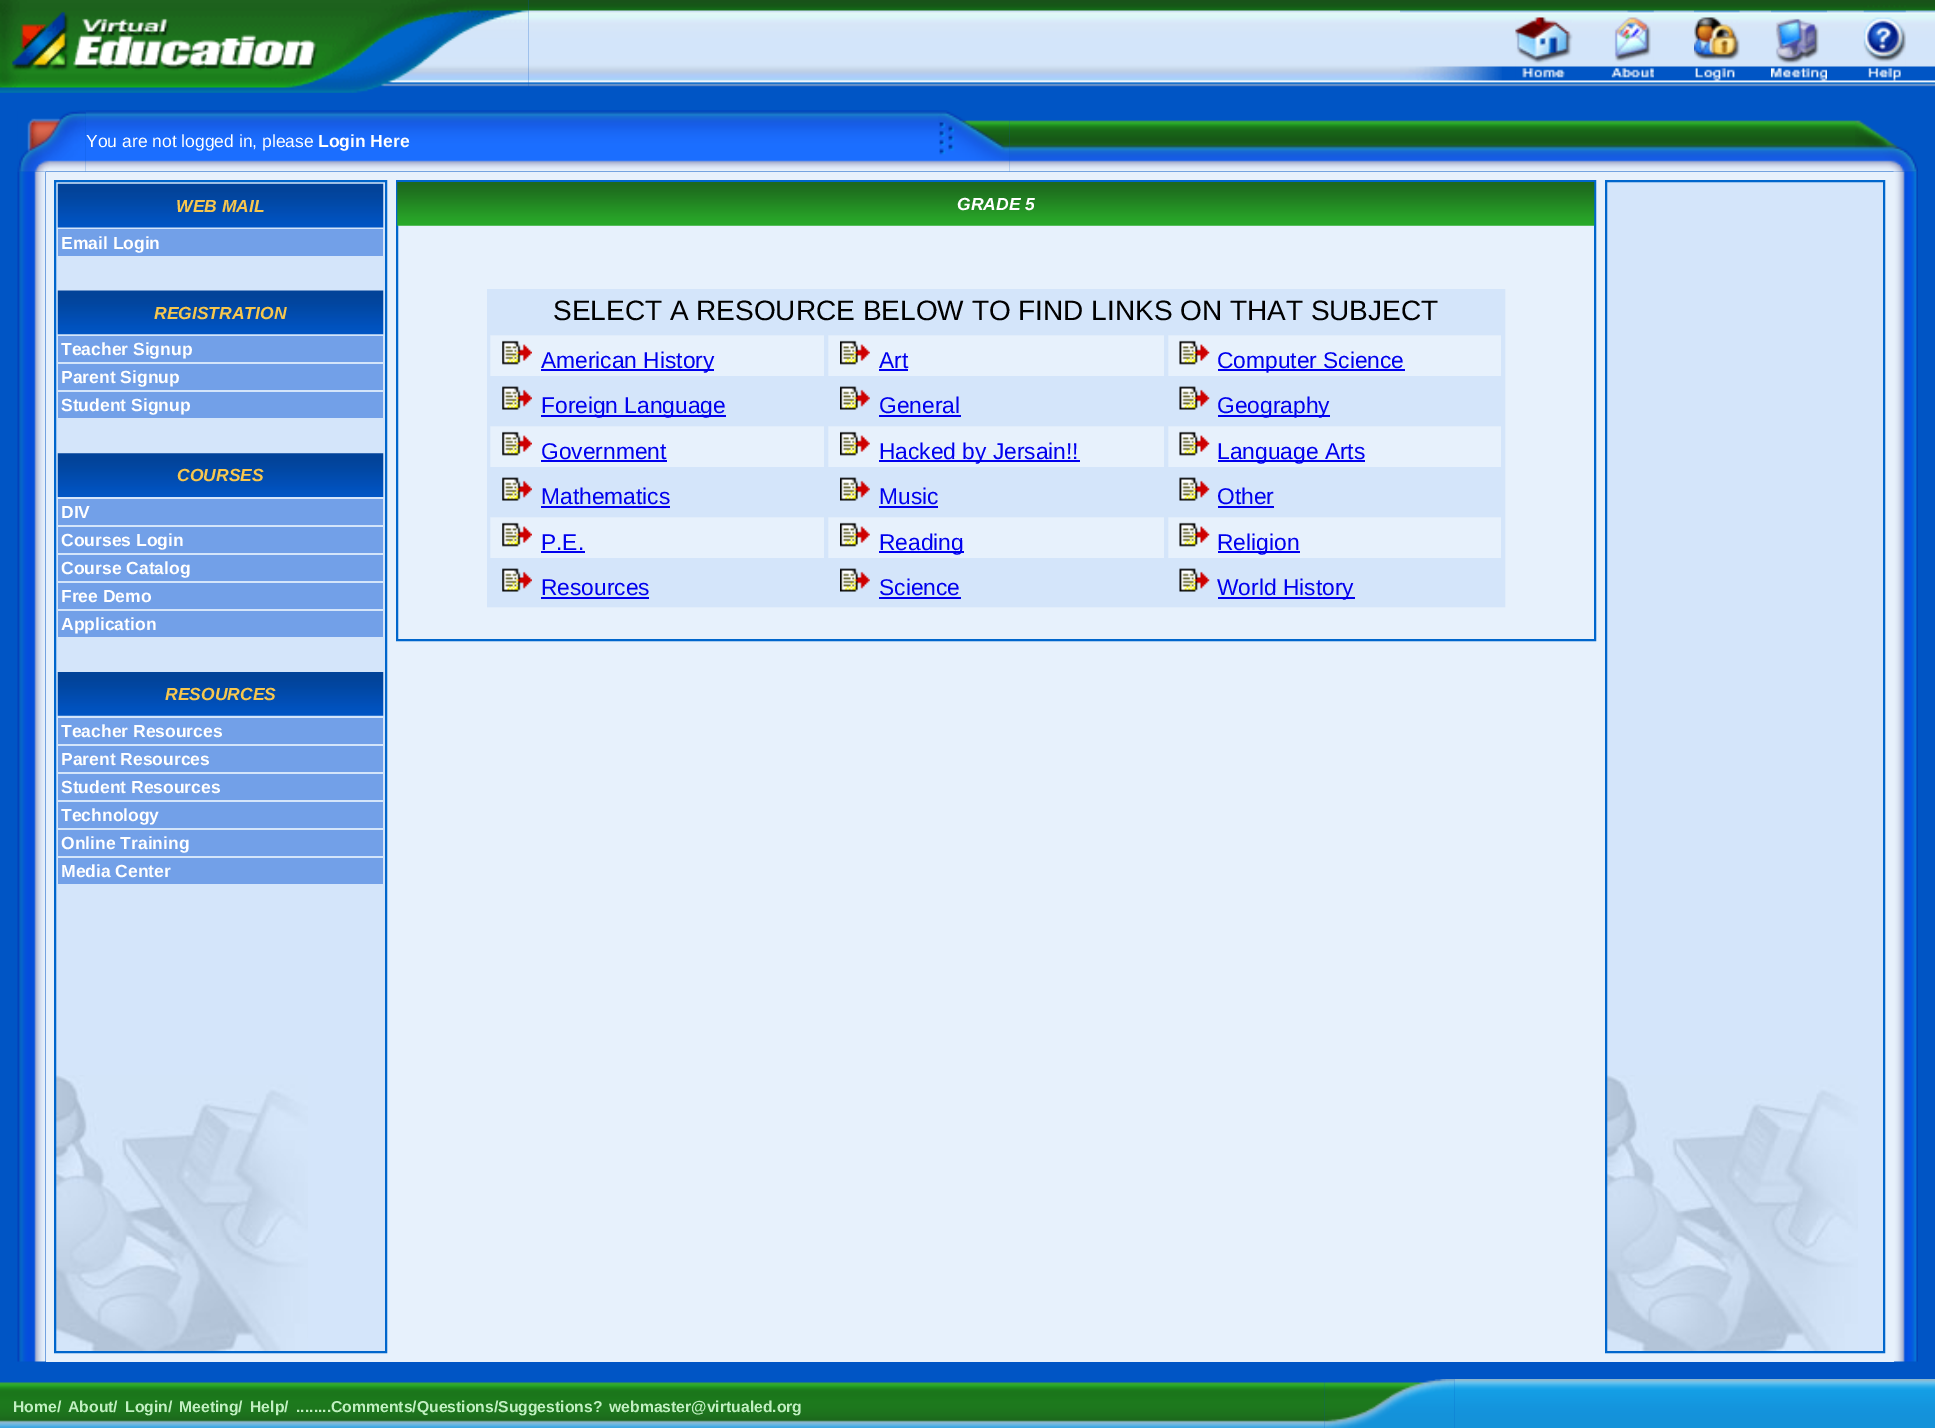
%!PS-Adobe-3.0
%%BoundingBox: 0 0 1935 1428
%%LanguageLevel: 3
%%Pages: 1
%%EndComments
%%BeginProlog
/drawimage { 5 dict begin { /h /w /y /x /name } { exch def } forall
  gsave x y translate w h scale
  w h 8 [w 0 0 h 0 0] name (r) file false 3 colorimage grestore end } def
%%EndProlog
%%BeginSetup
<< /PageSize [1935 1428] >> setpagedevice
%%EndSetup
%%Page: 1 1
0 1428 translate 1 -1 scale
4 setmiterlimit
0 0.333 0.773 setrgbcolor
0 0 1935 1428 rectfill
(images/2.raw) 528 0 1407 87 drawimage
(images/1.raw) 0 0 529 93 drawimage
(images/3.raw) 1400 10 535 71 drawimage
(images/4.raw) 1400 66 102 15 drawimage
(images/5.raw) 1515 17 58 61 drawimage
(images/6.raw) 1611 10 43 68 drawimage
(images/7.raw) 1694 10 46 71 drawimage
(images/8.raw) 1771 10 56 71 drawimage
(images/9.raw) 1863 5 43 76 drawimage
(images/11.raw) 85 110 853 62 drawimage
(images/15.raw) 17 171 29 1191 drawimage
(images/10.raw) 17 110 69 62 drawimage
(images/13.raw) 1009 120 846 52 drawimage
(images/12.raw) 938 110 72 62 drawimage
0.906 0.945 0.988 setrgbcolor
46 172 1848 1190 rectfill
(images/29.raw) 1893 171 25 1191 drawimage
(images/14.raw) 1855 120 63 52 drawimage
0.831 0.898 0.98 setrgbcolor
56 182 329 1169 rectfill
(images/16.raw) 56 1075 252 276 drawimage
0 0.4 0.8 setrgbcolor
2 setlinewidth
55 181 331 1171 rectstroke
(images/17.raw) 57 183 327 45 drawimage
0.447 0.627 0.91 setrgbcolor
58 229 325 27 rectfill
(images/18.raw) 57 290 327 45 drawimage
58 336 325 26 rectfill
58 364 325 26 rectfill
58 392 325 26 rectfill
(images/19.raw) 57 453 327 44 drawimage
58 499 325 26 rectfill
58 527 325 26 rectfill
58 555 325 26 rectfill
58 583 325 26 rectfill
58 611 325 26 rectfill
(images/20.raw) 57 672 327 44 drawimage
58 718 325 26 rectfill
58 746 325 26 rectfill
58 774 325 26 rectfill
58 802 325 26 rectfill
58 830 325 26 rectfill
58 858 325 26 rectfill
0 0.4 0.8 setrgbcolor
397 181 1198 459 rectstroke
(images/21.raw) 397 182 1198 44 drawimage
0.831 0.898 0.98 setrgbcolor
488 290 1016 316 rectstroke
489 291 1014 42 rectfill
489 334 336 43 rectstroke
(images/22.raw) 502 340 30 25 drawimage
0 0 0.933 setrgbcolor
541 369 173 2 rectfill
0.831 0.898 0.98 setrgbcolor
827 334 338 43 rectstroke
(images/23.raw) 840 340 30 25 drawimage
0 0 0.933 setrgbcolor
879 369 29 2 rectfill
0.831 0.898 0.98 setrgbcolor
1167 334 335 43 rectstroke
(images/24.raw) 1179 340 31 25 drawimage
0 0 0.933 setrgbcolor
1218 369 187 2 rectfill
0.831 0.898 0.98 setrgbcolor
489 378 1014 46 rectfill
(images/25.raw) 502 386 30 24 drawimage
0 0 0.933 setrgbcolor
541 415 185 2 rectfill
(images/26.raw) 840 386 30 24 drawimage
879 415 82 2 rectfill
(images/27.raw) 1179 386 31 24 drawimage
1218 415 112 2 rectfill
0.831 0.898 0.98 setrgbcolor
489 425 336 43 rectstroke
(images/22.raw) 502 431 30 25 drawimage
0 0 0.933 setrgbcolor
541 460 126 2 rectfill
0.831 0.898 0.98 setrgbcolor
827 425 338 43 rectstroke
(images/23.raw) 840 431 30 25 drawimage
0 0 0.933 setrgbcolor
879 460 201 2 rectfill
0.831 0.898 0.98 setrgbcolor
1167 425 335 43 rectstroke
(images/24.raw) 1179 431 31 25 drawimage
0 0 0.933 setrgbcolor
1218 460 147 2 rectfill
0.831 0.898 0.98 setrgbcolor
489 469 1014 46 rectfill
(images/25.raw) 502 477 30 24 drawimage
0 0 0.933 setrgbcolor
541 506 129 2 rectfill
(images/26.raw) 840 477 30 24 drawimage
879 506 59 2 rectfill
(images/27.raw) 1179 477 31 24 drawimage
1218 506 56 2 rectfill
0.831 0.898 0.98 setrgbcolor
489 516 336 43 rectstroke
(images/22.raw) 502 522 30 25 drawimage
0 0 0.933 setrgbcolor
541 551 44 2 rectfill
0.831 0.898 0.98 setrgbcolor
827 516 338 43 rectstroke
(images/23.raw) 840 522 30 25 drawimage
0 0 0.933 setrgbcolor
879 551 85 2 rectfill
0.831 0.898 0.98 setrgbcolor
1167 516 335 43 rectstroke
(images/24.raw) 1179 522 31 25 drawimage
0 0 0.933 setrgbcolor
1218 551 82 2 rectfill
0.831 0.898 0.98 setrgbcolor
489 560 1014 45 rectfill
(images/25.raw) 502 568 30 24 drawimage
0 0 0.933 setrgbcolor
541 597 108 2 rectfill
(images/26.raw) 840 568 30 24 drawimage
879 597 82 2 rectfill
(images/27.raw) 1179 568 31 24 drawimage
1218 597 137 2 rectfill
0.831 0.898 0.98 setrgbcolor
1607 182 276 1169 rectfill
(images/28.raw) 1607 1075 251 276 drawimage
0 0.4 0.8 setrgbcolor
1606 181 278 1171 rectstroke
(images/30.raw) 0 1382 1325 46 drawimage
(images/32.raw) 1454 1379 481 49 drawimage
(images/31.raw) 1324 1379 131 49 drawimage
/LiberationSans-Regular [17.5 0 0 -17.5 0 0] selectfont
1 setgray
86 147 moveto (You are not logged in, please) show
/LiberationSans-Bold [17.5 0 0 -17.5 0 0] selectfont
318 147 moveto (Login Here) show
/LiberationSans-BoldItalic [17.5 0 0 -17.5 0 0] selectfont
0.969 0.78 0.306 setrgbcolor
176 212 moveto (WEB MAIL) show
/LiberationSans-Bold [17.5 0 0 -17.5 0 0] selectfont
1 setgray
61 249 moveto (Email Login) show
/LiberationSans-BoldItalic [17.5 0 0 -17.5 0 0] selectfont
0.969 0.78 0.306 setrgbcolor
154 319 moveto (REGISTRATION) show
/LiberationSans-Bold [17.5 0 0 -17.5 0 0] selectfont
1 setgray
61 355 moveto (Teacher Signup) show
61 383 moveto (Parent Signup) show
61 411 moveto (Student Signup) show
/LiberationSans-BoldItalic [17.5 0 0 -17.5 0 0] selectfont
0.969 0.78 0.306 setrgbcolor
177 481 moveto (COURSES) show
/LiberationSans-Bold [17.5 0 0 -17.5 0 0] selectfont
1 setgray
61 518 moveto (DIV) show
61 546 moveto (Courses Login) show
61 574 moveto (Course Catalog) show
61 602 moveto (Free Demo) show
61 630 moveto (Application) show
/LiberationSans-BoldItalic [17.5 0 0 -17.5 0 0] selectfont
0.969 0.78 0.306 setrgbcolor
165 700 moveto (RESOURCES) show
/LiberationSans-Bold [17.5 0 0 -17.5 0 0] selectfont
1 setgray
61 737 moveto (Teacher Resources) show
61 765 moveto (Parent Resources) show
61 793 moveto (Student Resources) show
61 821 moveto (Technology) show
61 849 moveto (Online Training) show
61 877 moveto (Media Center) show
/LiberationSans-BoldItalic [17.5 0 0 -17.5 0 0] selectfont
957 210 moveto (GRADE 5) show
/LiberationSans-Regular [28 0 0 -28 0 0] selectfont
0 setgray
553 320 moveto (SELECT A RESOURCE BELOW TO FIND LINKS ON THAT SUBJECT) show
/LiberationSans-Regular [22.75 0 0 -22.75 0 0] selectfont
0 0 0.933 setrgbcolor
541 368 moveto (American History) show
879 368 moveto (Art) show
1217 368 moveto (Computer Science) show
541 413 moveto (Foreign Language) show
879 413 moveto (General) show
1217 413 moveto (Geography) show
541 459 moveto (Government) show
879 459 moveto (Hacked by Jersain!!) show
1217 459 moveto (Language Arts) show
541 504 moveto (Mathematics) show
879 504 moveto (Music) show
1217 504 moveto (Other) show
541 550 moveto (P.E.) show
879 550 moveto (Reading) show
1217 550 moveto (Religion) show
541 595 moveto (Resources) show
879 595 moveto (Science) show
1217 595 moveto (World History) show
/LiberationSans-Bold [15.75 0 0 -15.75 0 0] selectfont
0.757 0.937 0.757 setrgbcolor
13 1412 moveto (Home/) show
68 1412 moveto (About/) show
125 1412 moveto (Login/) show
179 1412 moveto (Meeting/) show
250 1412 moveto (Help/) show
296 1412 moveto (........Comments/Questions/Suggestions?) show
609 1412 moveto (webmaster@virtualed.org) show
showpage
%%EOF
